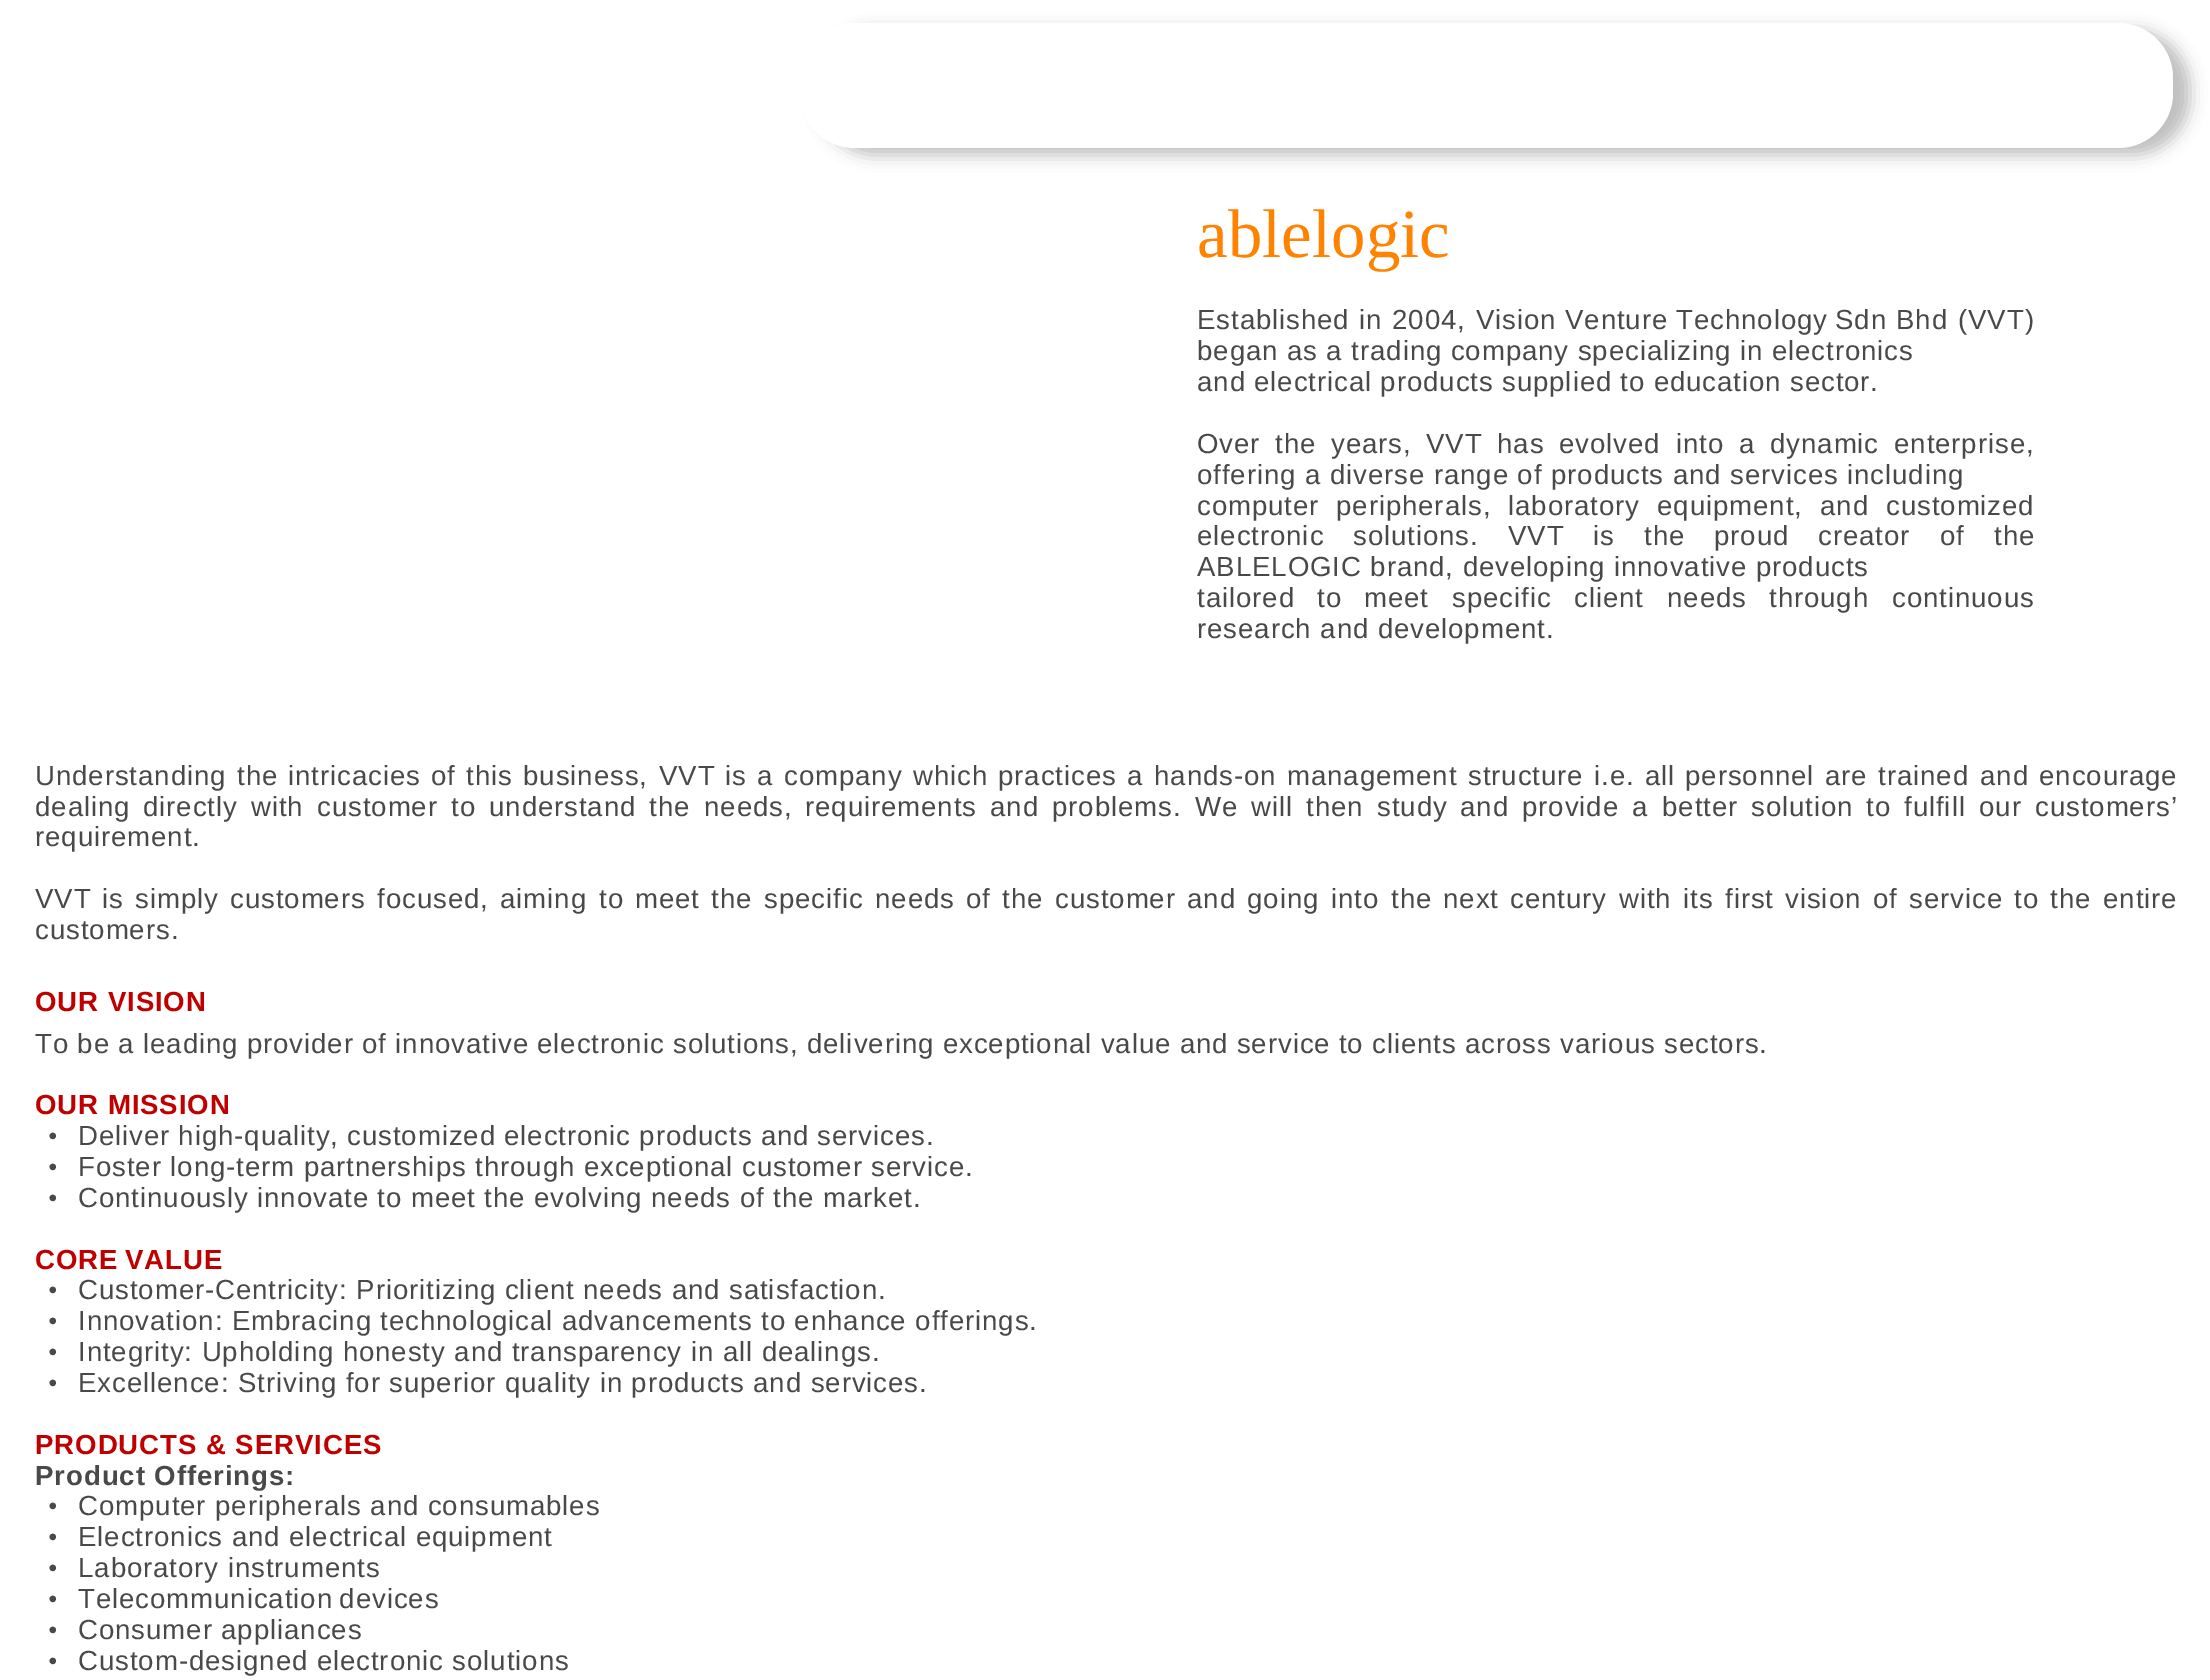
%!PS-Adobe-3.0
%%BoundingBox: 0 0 2210 1680
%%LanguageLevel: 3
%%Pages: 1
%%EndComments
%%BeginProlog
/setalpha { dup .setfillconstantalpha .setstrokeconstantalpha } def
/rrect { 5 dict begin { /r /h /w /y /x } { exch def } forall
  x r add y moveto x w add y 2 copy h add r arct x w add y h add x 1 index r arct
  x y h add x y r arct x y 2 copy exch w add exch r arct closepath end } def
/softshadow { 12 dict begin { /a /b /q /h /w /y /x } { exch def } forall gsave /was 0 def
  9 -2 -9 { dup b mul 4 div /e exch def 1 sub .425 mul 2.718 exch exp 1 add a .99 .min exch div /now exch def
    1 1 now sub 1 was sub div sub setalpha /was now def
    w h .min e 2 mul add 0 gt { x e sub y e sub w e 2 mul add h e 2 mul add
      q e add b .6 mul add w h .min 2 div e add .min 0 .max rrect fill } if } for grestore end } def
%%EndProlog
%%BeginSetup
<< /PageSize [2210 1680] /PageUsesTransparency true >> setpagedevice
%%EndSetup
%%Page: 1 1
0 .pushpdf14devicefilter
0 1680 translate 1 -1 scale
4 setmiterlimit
1 setgray
0 0 2210 1680 rectfill
0 setgray
818 30 1372 125 55 8 0.25 softshadow
1 setgray
800 23 1373 125 55 rrect fill
/LiberationSerif-Regular [69 0 0 -69 0 0] selectfont
1 0.51 0 setrgbcolor
1197 257 moveto (ablelogic) show
/LiberationSans-Regular [27.62 0 0 -27.62 0 0] selectfont
0.286 setgray
1197 329 moveto 0.91 0 (Established) ashow
1359 329 moveto 0.91 0 (in) ashow
1392 329 moveto 0.91 0 (2004,) ashow
1476 329 moveto 0.91 0 (Vision) ashow
1565 329 moveto 0.91 0 (Venture) ashow
1676 329 moveto 0.91 0 (Technology) ashow
1835 329 moveto 0.91 0 (Sdn) ashow
1896 329 moveto 0.91 0 (Bhd) ashow
1958 329 moveto 0.91 0 (\(VVT\)) ashow
1197 360 moveto 0.91 0 (began as a trading company specializing in electronics) ashow
1197 391 moveto -0.25 0 32 0.91 0 (and electrical products supplied to education sector.) awidthshow
1197 453 moveto 0.91 0 (Over) ashow
1275 453 moveto 0.91 0 (the) ashow
1331 453 moveto 0.91 0 (years,) ashow
1426 453 moveto 0.91 0 (VVT) ashow
1497 453 moveto 0.91 0 (has) ashow
1559 453 moveto 0.91 0 (evolved) ashow
1676 453 moveto 0.91 0 (into) ashow
1739 453 moveto 0.91 0 (a) ashow
1770 453 moveto 0.91 0 (dynamic) ashow
1894 453 moveto 0.91 0 (enterprise,) ashow
1197 484 moveto 0.91 0 (offering a diverse range of products and services including) ashow
1197 515 moveto 0.91 0 (computer) ashow
1336 515 moveto 0.91 0 (peripherals,) ashow
1508 515 moveto 0.91 0 (laboratory) ashow
1657 515 moveto 0.91 0 (equipment,) ashow
1820 515 moveto 0.91 0 (and) ashow
1886 515 moveto 0.91 0 (customized) ashow
1197 545 moveto 0.91 0 (electronic) ashow
1353 545 moveto 0.91 0 (solutions.) ashow
1508 545 moveto 0.91 0 (VVT) ashow
1593 545 moveto 0.91 0 (is) ashow
1644 545 moveto 0.91 0 (the) ashow
1714 545 moveto 0.91 0 (proud) ashow
1818 545 moveto 0.91 0 (creator) ashow
1940 545 moveto 0.91 0 (of) ashow
1994 545 moveto 0.91 0 (the) ashow
1197 576 moveto 0.91 0 (ABLELOGIC brand, developing innovative products) ashow
1197 607 moveto 0.91 0 (tailored) ashow
1317 607 moveto 0.91 0 (to) ashow
1364 607 moveto 0.91 0 (meet) ashow
1452 607 moveto 0.91 0 (specific) ashow
1574 607 moveto 0.91 0 (client) ashow
1667 607 moveto 0.91 0 (needs) ashow
1769 607 moveto 0.91 0 (through) ashow
1892 607 moveto 0.91 0 (continuous) ashow
1197 638 moveto 0.91 0 (research and development.) ashow
35 785 moveto 0.91 0 (Understanding) ashow
237 785 moveto 0.91 0 (the) ashow
288 785 moveto 0.91 0 (intricacies) ashow
431 785 moveto 0.91 0 (of) ashow
466 785 moveto 0.91 0 (this) ashow
523 785 moveto 0.91 0 (business,) ashow
659 785 moveto 0.91 0 (VVT) ashow
725 785 moveto 0.91 0 (is) ashow
757 785 moveto 0.91 0 (a) ashow
784 785 moveto 0.91 0 (company) ashow
913 785 moveto 0.91 0 (which) ashow
998 785 moveto 0.91 0 (practices) ashow
1127 785 moveto 0.91 0 (a) ashow
1154 785 moveto 0.91 0 (hands-on) ashow
1287 785 moveto 0.91 0 (management) ashow
1468 785 moveto 0.91 0 (structure) ashow
1594 785 moveto 0.91 0 (i.e.) ashow
1645 785 moveto 0.91 0 (all) ashow
1685 785 moveto 0.91 0 (personnel) ashow
1825 785 moveto 0.91 0 (are) ashow
1878 785 moveto 0.91 0 (trained) ashow
1980 785 moveto 0.91 0 (and) ashow
2039 785 moveto 0.91 0 (encourage) ashow
35 816 moveto 0.91 0 (dealing) ashow
143 816 moveto 0.91 0 (directly) ashow
251 816 moveto 0.91 0 (with) ashow
317 816 moveto 0.91 0 (customer) ashow
451 816 moveto 0.91 0 (to) ashow
489 816 moveto 0.91 0 (understand) ashow
649 816 moveto 0.91 0 (the) ashow
704 816 moveto 0.91 0 (needs,) ashow
805 816 moveto 0.91 0 (requirements) ashow
990 816 moveto 0.91 0 (and) ashow
1052 816 moveto 0.91 0 (problems.) ashow
1195 816 moveto 0.91 0 (We) ashow
1251 816 moveto 0.91 0 (will) ashow
1306 816 moveto 0.91 0 (then) ashow
1377 816 moveto 0.91 0 (study) ashow
1460 816 moveto 0.91 0 (and) ashow
1522 816 moveto 0.91 0 (provide) ashow
1632 816 moveto 0.91 0 (a) ashow
1662 816 moveto 0.91 0 (better) ashow
1751 816 moveto 0.91 0 (solution) ashow
1866 816 moveto 0.91 0 (to) ashow
1904 816 moveto 0.91 0 (fulfill) ashow
1979 816 moveto 0.91 0 (our) ashow
2035 816 moveto 0.91 0 (customers’) ashow
35 846 moveto 0.91 0 (requirement.) ashow
35 908 moveto 0.91 0 (VVT) ashow
102 908 moveto 0.91 0 (is) ashow
135 908 moveto 0.91 0 (simply) ashow
230 908 moveto 0.91 0 (customers) ashow
377 908 moveto 0.91 0 (focused,) ashow
500 908 moveto 0.91 0 (aiming) ashow
599 908 moveto 0.91 0 (to) ashow
635 908 moveto 0.91 0 (meet) ashow
711 908 moveto 0.91 0 (the) ashow
764 908 moveto 0.91 0 (specific) ashow
875 908 moveto 0.91 0 (needs) ashow
966 908 moveto 0.91 0 (of) ashow
1002 908 moveto 0.91 0 (the) ashow
1055 908 moveto 0.91 0 (customer) ashow
1187 908 moveto 0.91 0 (and) ashow
1247 908 moveto 0.91 0 (going) ashow
1331 908 moveto 0.91 0 (into) ashow
1391 908 moveto 0.91 0 (the) ashow
1443 908 moveto 0.91 0 (next) ashow
1510 908 moveto 0.91 0 (century) ashow
1619 908 moveto 0.91 0 (with) ashow
1683 908 moveto 0.91 0 (its) ashow
1725 908 moveto 0.91 0 (first) ashow
1785 908 moveto 0.91 0 (vision) ashow
1873 908 moveto 0.91 0 (of) ashow
1909 908 moveto 0.91 0 (service) ashow
2014 908 moveto 0.91 0 (to) ashow
2050 908 moveto 0.91 0 (the) ashow
2103 908 moveto 0.91 0 (entire) ashow
35 939 moveto 0.91 0 (customers.) ashow
/LiberationSans-Bold [27.62 0 0 -27.62 0 0] selectfont
0.749 0 0 setrgbcolor
35 1011 moveto 0.91 0 (OUR VISION) ashow
/LiberationSans-Regular [27.62 0 0 -27.62 0 0] selectfont
0.286 setgray
35 1053 moveto -0.2 0 32 0.91 0 (To be a leading provider of innovative electronic solutions, delivering exceptional value and service to clients across various sectors.) awidthshow
/LiberationSans-Bold [27.62 0 0 -27.62 0 0] selectfont
0.749 0 0 setrgbcolor
35 1114 moveto 0.91 0 (OUR MISSION) ashow
/LiberationSerif-Regular [27.62 0 0 -27.62 0 0] selectfont
0.286 setgray
48 1145 moveto 0.91 0 (•) ashow
/LiberationSans-Regular [27.62 0 0 -27.62 0 0] selectfont
78 1145 moveto -0.5 0 32 0.91 0 (Deliver high-quality, customized electronic products and services.) awidthshow
/LiberationSerif-Regular [27.62 0 0 -27.62 0 0] selectfont
48 1176 moveto 0.91 0 (•) ashow
/LiberationSans-Regular [27.62 0 0 -27.62 0 0] selectfont
78 1176 moveto 0.91 0 (Foster long-term partnerships through exceptional customer service.) ashow
/LiberationSerif-Regular [27.62 0 0 -27.62 0 0] selectfont
48 1207 moveto 0.91 0 (•) ashow
/LiberationSans-Regular [27.62 0 0 -27.62 0 0] selectfont
78 1207 moveto 0.91 0 (Continuously innovate to meet the evolving needs of the market.) ashow
/LiberationSans-Bold [27.62 0 0 -27.62 0 0] selectfont
0.749 0 0 setrgbcolor
35 1269 moveto -2 0 32 0.91 0 (CORE VALUE) awidthshow
/LiberationSerif-Regular [27.62 0 0 -27.62 0 0] selectfont
0.286 setgray
48 1299 moveto 0.91 0 (•) ashow
/LiberationSans-Regular [27.62 0 0 -27.62 0 0] selectfont
78 1299 moveto 0.91 0 (Customer-Centricity: Prioritizing client needs and satisfaction.) ashow
/LiberationSerif-Regular [27.62 0 0 -27.62 0 0] selectfont
48 1330 moveto 0.91 0 (•) ashow
/LiberationSans-Regular [27.62 0 0 -27.62 0 0] selectfont
78 1330 moveto 0.91 0 (Innovation: Embracing technological advancements to enhance offerings.) ashow
/LiberationSerif-Regular [27.62 0 0 -27.62 0 0] selectfont
48 1361 moveto 0.91 0 (•) ashow
/LiberationSans-Regular [27.62 0 0 -27.62 0 0] selectfont
78 1361 moveto 0.91 0 (Integrity: Upholding honesty and transparency in all dealings.) ashow
/LiberationSerif-Regular [27.62 0 0 -27.62 0 0] selectfont
48 1392 moveto 0.91 0 (•) ashow
/LiberationSans-Regular [27.62 0 0 -27.62 0 0] selectfont
78 1392 moveto 0.91 0 (Excellence: Striving for superior quality in products and services.) ashow
/LiberationSans-Bold [27.62 0 0 -27.62 0 0] selectfont
0.749 0 0 setrgbcolor
35 1454 moveto 0.91 0 (PRODUCTS & SERVICES) ashow
0.286 setgray
35 1485 moveto 0.91 0 (Product Offerings:) ashow
/LiberationSerif-Regular [27.62 0 0 -27.62 0 0] selectfont
48 1515 moveto 0.91 0 (•) ashow
/LiberationSans-Regular [27.62 0 0 -27.62 0 0] selectfont
78 1515 moveto 0.91 0 (Computer peripherals and consumables) ashow
/LiberationSerif-Regular [27.62 0 0 -27.62 0 0] selectfont
48 1546 moveto 0.91 0 (•) ashow
/LiberationSans-Regular [27.62 0 0 -27.62 0 0] selectfont
78 1546 moveto 0.91 0 (Electronics and electrical equipment) ashow
/LiberationSerif-Regular [27.62 0 0 -27.62 0 0] selectfont
48 1577 moveto 0.91 0 (•) ashow
/LiberationSans-Regular [27.62 0 0 -27.62 0 0] selectfont
78 1577 moveto 0.91 0 (Laboratory instruments) ashow
/LiberationSerif-Regular [27.62 0 0 -27.62 0 0] selectfont
48 1608 moveto 0.91 0 (•) ashow
/LiberationSans-Regular [27.62 0 0 -27.62 0 0] selectfont
78 1608 moveto -2 0 32 0.91 0 (Telecommunication devices) awidthshow
/LiberationSerif-Regular [27.62 0 0 -27.62 0 0] selectfont
48 1639 moveto 0.91 0 (•) ashow
/LiberationSans-Regular [27.62 0 0 -27.62 0 0] selectfont
78 1639 moveto 0.91 0 (Consumer appliances) ashow
/LiberationSerif-Regular [27.62 0 0 -27.62 0 0] selectfont
48 1670 moveto 0.91 0 (•) ashow
/LiberationSans-Regular [27.62 0 0 -27.62 0 0] selectfont
78 1670 moveto 0.91 0 (Custom-designed electronic solutions) ashow
.poppdf14devicefilter showpage
%%EOF
